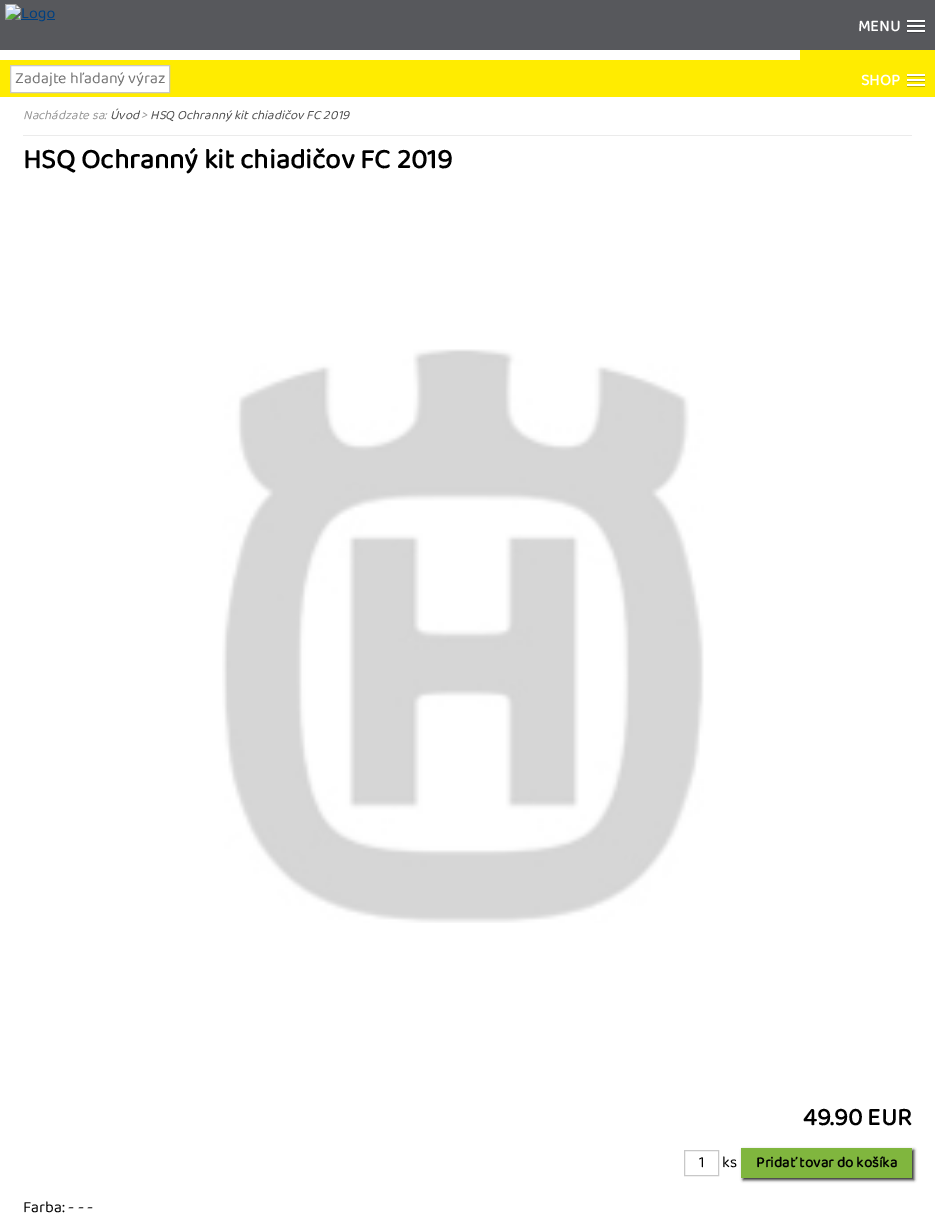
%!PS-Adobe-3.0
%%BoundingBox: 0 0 935 1217
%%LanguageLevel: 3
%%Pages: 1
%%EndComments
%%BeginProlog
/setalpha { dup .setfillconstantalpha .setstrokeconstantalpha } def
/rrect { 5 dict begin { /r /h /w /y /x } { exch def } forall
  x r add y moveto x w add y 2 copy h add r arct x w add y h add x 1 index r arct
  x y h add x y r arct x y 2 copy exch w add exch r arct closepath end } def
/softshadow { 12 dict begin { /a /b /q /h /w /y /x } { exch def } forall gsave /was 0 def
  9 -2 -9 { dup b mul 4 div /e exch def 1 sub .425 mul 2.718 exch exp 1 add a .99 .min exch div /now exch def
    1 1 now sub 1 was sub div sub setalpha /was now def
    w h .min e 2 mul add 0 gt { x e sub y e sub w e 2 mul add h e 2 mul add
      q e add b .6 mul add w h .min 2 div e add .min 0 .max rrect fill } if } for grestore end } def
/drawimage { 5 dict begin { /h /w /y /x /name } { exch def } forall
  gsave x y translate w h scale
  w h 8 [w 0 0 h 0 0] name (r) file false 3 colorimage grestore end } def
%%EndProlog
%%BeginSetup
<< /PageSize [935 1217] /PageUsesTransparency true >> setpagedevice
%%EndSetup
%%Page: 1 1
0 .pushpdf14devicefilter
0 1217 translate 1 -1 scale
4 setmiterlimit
1 setgray
0 0 935 1217 rectfill
0.341 0.345 0.361 setrgbcolor
0 0 935 50 rectfill
0.255 0.259 0.271 setrgbcolor
907 22 18 1 rectfill
1 setgray
907 20 18 2 rectfill
0.255 0.259 0.271 setrgbcolor
907 27 18 1 rectfill
1 setgray
907 25 18 2 rectfill
0.255 0.259 0.271 setrgbcolor
907 32 18 1 rectfill
1 setgray
907 30 18 2 rectfill
(images/1.raw) 5 4 50 18 drawimage
1 0.929 0 setrgbcolor
800 50 135 10 rectfill
1 0.925 0 setrgbcolor
0 60 935 37 rectfill
1 setgray
newpath 10.5 65.5 moveto 169.5 65.5 lineto 169.5 92.5 lineto 10.5 92.5 lineto closepath gsave fill grestore
0.784 setgray
stroke
0.749 0.694 0 setrgbcolor
907 76 18 1 rectfill
1 setgray
907 74 18 2 rectfill
0.749 0.694 0 setrgbcolor
907 81 18 1 rectfill
1 setgray
907 79 18 2 rectfill
0.749 0.694 0 setrgbcolor
907 86 18 1 rectfill
1 setgray
907 84 18 2 rectfill
0.922 setgray
23 135 889 1 rectfill
(images/2.raw) 222 349 482 574 drawimage
0.784 setgray
684.5 1150.5 34 25 rectstroke
0.196 setgray
743 1150 171 30 0 1.5 1 softshadow
0.502 0.714 0.243 setrgbcolor
741 1148 171 30 rectfill
/BalooThambi2-Bold [16 0 0 -16 0 0] selectfont
1 setgray
858 31 moveto (MENU) show
/BalooThambi2-Regular [16 0 0 -16 0 0] selectfont
0.459 setgray
15 83 moveto (Zadajte hľadaný výraz) show
/BalooThambi2-Bold [16 0 0 -16 0 0] selectfont
1 setgray
861 85 moveto (SHOP) show
/BalooThambi2-Italic [13 0 0 -13 0 0] selectfont
0.588 setgray
23 119 moveto (Nachádzate sa:) show
0.314 setgray
110 119 moveto (Úvod) show
0.588 setgray
141 119 moveto (>) show
0.314 setgray
150 119 moveto (HSQ Ochranný kit chiadičov FC 2019) show
/BalooThambi2-Bold [28 0 0 -28 0 0] selectfont
0 setgray
23 168 moveto (HSQ Ochranný kit chiadičov FC 2019) show
/BalooThambi2-Bold [25 0 0 -25 0 0] selectfont
803 1125 moveto (49.90 EUR) show
/BalooThambi2-Regular [16 0 0 -16 0 0] selectfont
699 1167 moveto (1) show
722 1167 moveto (ks) show
/BalooThambi2-Bold [15 0 0 -15 0 0] selectfont
756 1167 moveto (Pridať tovar do košíka) show
/BalooThambi2-Regular [16 0 0 -16 0 0] selectfont
23 1212 moveto (Farba: - - -) show
.poppdf14devicefilter showpage
%%EOF
